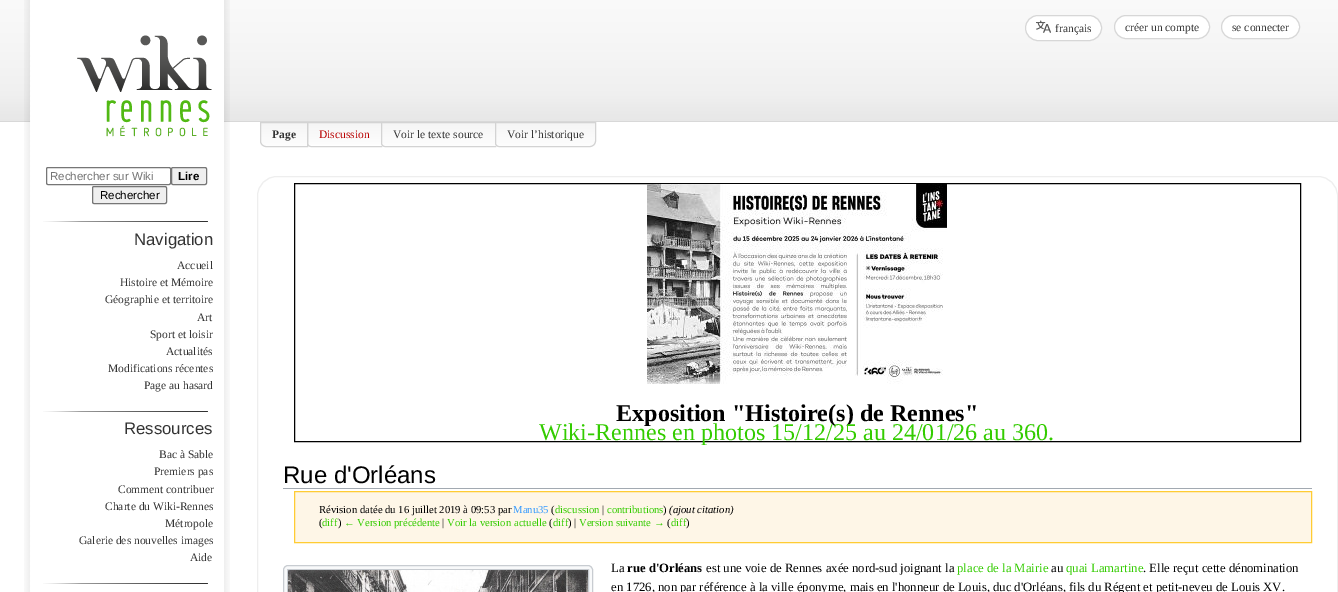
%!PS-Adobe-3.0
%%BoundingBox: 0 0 1338 592
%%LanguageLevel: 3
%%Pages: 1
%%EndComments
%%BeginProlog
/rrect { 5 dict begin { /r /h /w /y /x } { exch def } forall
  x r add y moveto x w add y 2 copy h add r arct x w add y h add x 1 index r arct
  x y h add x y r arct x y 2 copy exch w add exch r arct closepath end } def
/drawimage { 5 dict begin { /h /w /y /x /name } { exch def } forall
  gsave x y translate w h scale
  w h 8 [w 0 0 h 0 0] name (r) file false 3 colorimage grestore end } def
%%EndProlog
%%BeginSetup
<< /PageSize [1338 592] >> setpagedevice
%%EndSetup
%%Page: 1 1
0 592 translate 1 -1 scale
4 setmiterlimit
1 setgray
0 0 1338 592 rectfill
(images/1.raw) 0 0 1338 122 drawimage
(images/2.raw) 24 0 206 592 drawimage
1025.5 15.5 76 25 12.5 rrect gsave fill grestore
0.843 setgray
stroke
(images/3.raw) 1036 20 15 13 drawimage
1 setgray
1114.5 15.5 95 23 11.5 rrect gsave fill grestore
0.843 setgray
stroke
1 setgray
1221.5 15.5 78 23 11.5 rrect gsave fill grestore
0.843 setgray
stroke
(images/4.raw) 77 35 135 102 drawimage
gsave
newpath 260 122 moveto 308 122 lineto 308 147 lineto 266 147 lineto 262.5 147 260 144.5 260 141 curveto closepath clip newpath
gsave newpath 260 123 moveto 307 123 lineto 307 146 lineto 260 146 lineto closepath clip newpath
<< /ShadingType 2 /ColorSpace /DeviceRGB /Coords [284 123 284 146] /Extend [true true] /Function << /FunctionType 2 /Domain [0 1] /C0 [0.961 0.961 0.961] /C1 [0.992 0.992 0.992] /N 1 >> >> shfill grestore
grestore
gsave newpath 308 123 moveto 381 123 lineto 381 145 lineto 308 145 lineto closepath clip newpath
<< /ShadingType 2 /ColorSpace /DeviceRGB /Coords [345 123 345 146] /Extend [true true] /Function << /FunctionType 2 /Domain [0 1] /C0 [0.961 0.961 0.961] /C1 [0.992 0.992 0.992] /N 1 >> >> shfill grestore
0.827 setgray
newpath 307.5 122.5 moveto 381.5 122.5 lineto 381.5 146.5 lineto 311 146.5 lineto 309 146.5 307.5 145 307.5 143 curveto closepath stroke
newpath 260.5 122.5 moveto 307.5 122.5 lineto 307.5 146.5 lineto 266 146.5 lineto 263 146.5 260.5 144 260.5 141 curveto closepath stroke
gsave
newpath 381 122 moveto 496 122 lineto 496 147 lineto 385 147 lineto 383 147 381 145 381 143 curveto closepath clip newpath
gsave newpath 381 123 moveto 495 123 lineto 495 146 lineto 381 146 lineto closepath clip newpath
<< /ShadingType 2 /ColorSpace /DeviceRGB /Coords [439 123 439 146] /Extend [true true] /Function << /FunctionType 2 /Domain [0 1] /C0 [0.961 0.961 0.961] /C1 [0.992 0.992 0.992] /N 1 >> >> shfill grestore
grestore
newpath 381.5 122.5 moveto 495.5 122.5 lineto 495.5 146.5 lineto 385 146.5 lineto 383 146.5 381.5 145 381.5 143 curveto closepath stroke
gsave
newpath 495 122 moveto 596 122 lineto 596 141 lineto 596 144.5 593.5 147 590 147 curveto 499 147 lineto 497 147 495 145 495 143 curveto closepath clip newpath
gsave newpath 495 123 moveto 596 123 lineto 596 146 lineto 495 146 lineto closepath clip newpath
<< /ShadingType 2 /ColorSpace /DeviceRGB /Coords [546 123 546 146] /Extend [true true] /Function << /FunctionType 2 /Domain [0 1] /C0 [0.961 0.961 0.961] /C1 [0.992 0.992 0.992] /N 1 >> >> shfill grestore
grestore
newpath 495.5 122.5 moveto 595.5 122.5 lineto 595.5 141 lineto 595.5 144 593 146.5 590 146.5 curveto 499 146.5 lineto 497 146.5 495.5 145 495.5 143 curveto closepath stroke
0.463 setgray
46.5 167.5 124 17 1.5 rrect stroke
0.937 setgray
171.5 167.5 35 17 1.5 rrect gsave fill grestore
0.463 setgray
stroke
0.937 setgray
92.5 186.5 74 17 1.5 rrect gsave fill grestore
0.463 setgray
stroke
(images/5.raw) 43 221 165 1 drawimage
(images/5.raw) 43 411 165 1 drawimage
(images/5.raw) 43 583 165 1 drawimage
0.933 setgray
257.5 176.5 1080 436 19.5 rrect stroke
0 setgray
294.5 183.5 1006 258 rectstroke
(images/6.raw) 647 184 300 200 drawimage
0.635 0.663 0.694 setrgbcolor
283 488 1029 1 rectfill
0.996 0.965 0.906 setrgbcolor
newpath 294.5 491.5 moveto 1311.5 491.5 lineto 1311.5 542.5 lineto 294.5 542.5 lineto closepath gsave fill grestore
1 0.8 0.2 setrgbcolor
stroke
0.973 0.976 0.98 setrgbcolor
283.5 565.5 309 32 4.5 rrect gsave fill grestore
0.784 0.8 0.82 setrgbcolor
stroke
287.5 569.5 301 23 rectstroke
(images/7.raw) 288 570 300 22 drawimage
/LiberationSerif-Regular [11.5 0 0 -11.5 0 0] selectfont
0.2 setgray
1055 32 moveto (français) show
1125 31 moveto (créer un compte) show
1232 31 moveto (se connecter) show
/LiberationSerif-Bold [11.5 0 0 -11.5 0 0] selectfont
272 138 moveto (Page) show
/LiberationSerif-Regular [11.5 0 0 -11.5 0 0] selectfont
0.729 0 0 setrgbcolor
319 138 moveto (Discussion) show
0.2 setgray
393 138 moveto (Voir le texte source) show
507 138 moveto (Voir l’historique) show
/LiberationSans-Regular [11.5 0 0 -11.5 0 0] selectfont
0.459 setgray
50 180 moveto (Rechercher sur Wiki) show
/LiberationSans-Bold [11.5 0 0 -11.5 0 0] selectfont
0 setgray
178 180 moveto (Lire) show
/LiberationSans-Regular [11.5 0 0 -11.5 0 0] selectfont
100 199 moveto (Rechercher) show
/LiberationSans-Regular [16.75 0 0 -16.75 0 0] selectfont
0.2 setgray
134 245 moveto (Navigation) show
/LiberationSerif-Regular [11.5 0 0 -11.5 0 0] selectfont
177 269 moveto (Accueil) show
120 286 moveto (Histoire et Mémoire) show
105 303 moveto (Géographie et territoire) show
197 321 moveto (Art) show
150 338 moveto (Sport et loisir) show
166 355 moveto (Actualités) show
108 372 moveto (Modifications récentes) show
144 389 moveto (Page au hasard) show
/LiberationSans-Regular [16.75 0 0 -16.75 0 0] selectfont
124 434 moveto (Ressources) show
/LiberationSerif-Regular [11.5 0 0 -11.5 0 0] selectfont
159 458 moveto (Bac à Sable) show
154 475 moveto (Premiers pas) show
118 493 moveto (Comment contribuer) show
105 510 moveto (Charte du Wiki-Rennes) show
165 527 moveto (Métropole) show
79 544 moveto (Galerie des nouvelles images) show
190 561 moveto (Aide) show
/LiberationSerif-Bold [24.1 0 0 -24.1 0 0] selectfont
0 setgray
616 421 moveto (Exposition "Histoire\(s\) de Rennes") show
/LiberationSerif-Regular [24.1 0 0 -24.1 0 0] selectfont
0.2 0.8 0 setrgbcolor
539 440 moveto (Wiki-Rennes en photos 15/12/25 au 24/01/26 au 360.) show
/LiberationSans-Regular [24 0 0 -24 0 0] selectfont
0 setgray
283 483 moveto (Rue d'Orléans) show
/LiberationSerif-Regular [10.7 0 0 -10.7 0 0] selectfont
319 513 moveto (Révision datée du 16 juillet 2019 à 09:53 par) show
0.2 0.6 1 setrgbcolor
513 513 moveto (Manu35) show
0 setgray
551 513 moveto (\() show
0.2 0.8 0 setrgbcolor
555 513 moveto (discussion) show
0 setgray
602 513 moveto (|) show
0.2 0.8 0 setrgbcolor
607 513 moveto (contributions) show
0 setgray
663 513 moveto (\)) show
/LiberationSerif-Italic [10.7 0 0 -10.7 0 0] selectfont
669 513 moveto (\(ajout citation\)) show
/LiberationSerif-Regular [10.7 0 0 -10.7 0 0] selectfont
319 526 moveto (\() show
0.2 0.8 0 setrgbcolor
322 526 moveto (diff) show
0 setgray
338 526 moveto (\)) show
0.2 0.8 0 setrgbcolor
344 526 moveto (← Version précédente) show
0 setgray
442 526 moveto (|) show
0.2 0.8 0 setrgbcolor
447 526 moveto (Voir la version actuelle) show
0 setgray
549 526 moveto (\() show
0.2 0.8 0 setrgbcolor
553 526 moveto (diff) show
0 setgray
568 526 moveto (\) |) show
0.2 0.8 0 setrgbcolor
579 526 moveto (Version suivante →) show
0 setgray
667 526 moveto (\() show
0.2 0.8 0 setrgbcolor
671 526 moveto (diff) show
0 setgray
686 526 moveto (\)) show
/LiberationSerif-Regular [12.7 0 0 -12.7 0 0] selectfont
611 572 moveto (La) show
/LiberationSerif-Bold [12.7 0 0 -12.7 0 0] selectfont
627 572 moveto (rue d'Orléans) show
/LiberationSerif-Regular [12.7 0 0 -12.7 0 0] selectfont
706 572 moveto (est une voie de Rennes axée nord-sud joignant la) show
0.2 0.8 0 setrgbcolor
957 572 moveto (place de la Mairie) show
0 setgray
1051 572 moveto (au) show
0.2 0.8 0 setrgbcolor
1066 572 moveto (quai Lamartine) show
0 setgray
1143 572 moveto (. Elle reçut cette dénomination) show
611 591 moveto (en 1726, non par référence à la ville éponyme, mais en l'honneur de Louis, duc d'Orléans, fils du Régent et petit-neveu de Louis XV.) show
showpage
%%EOF
